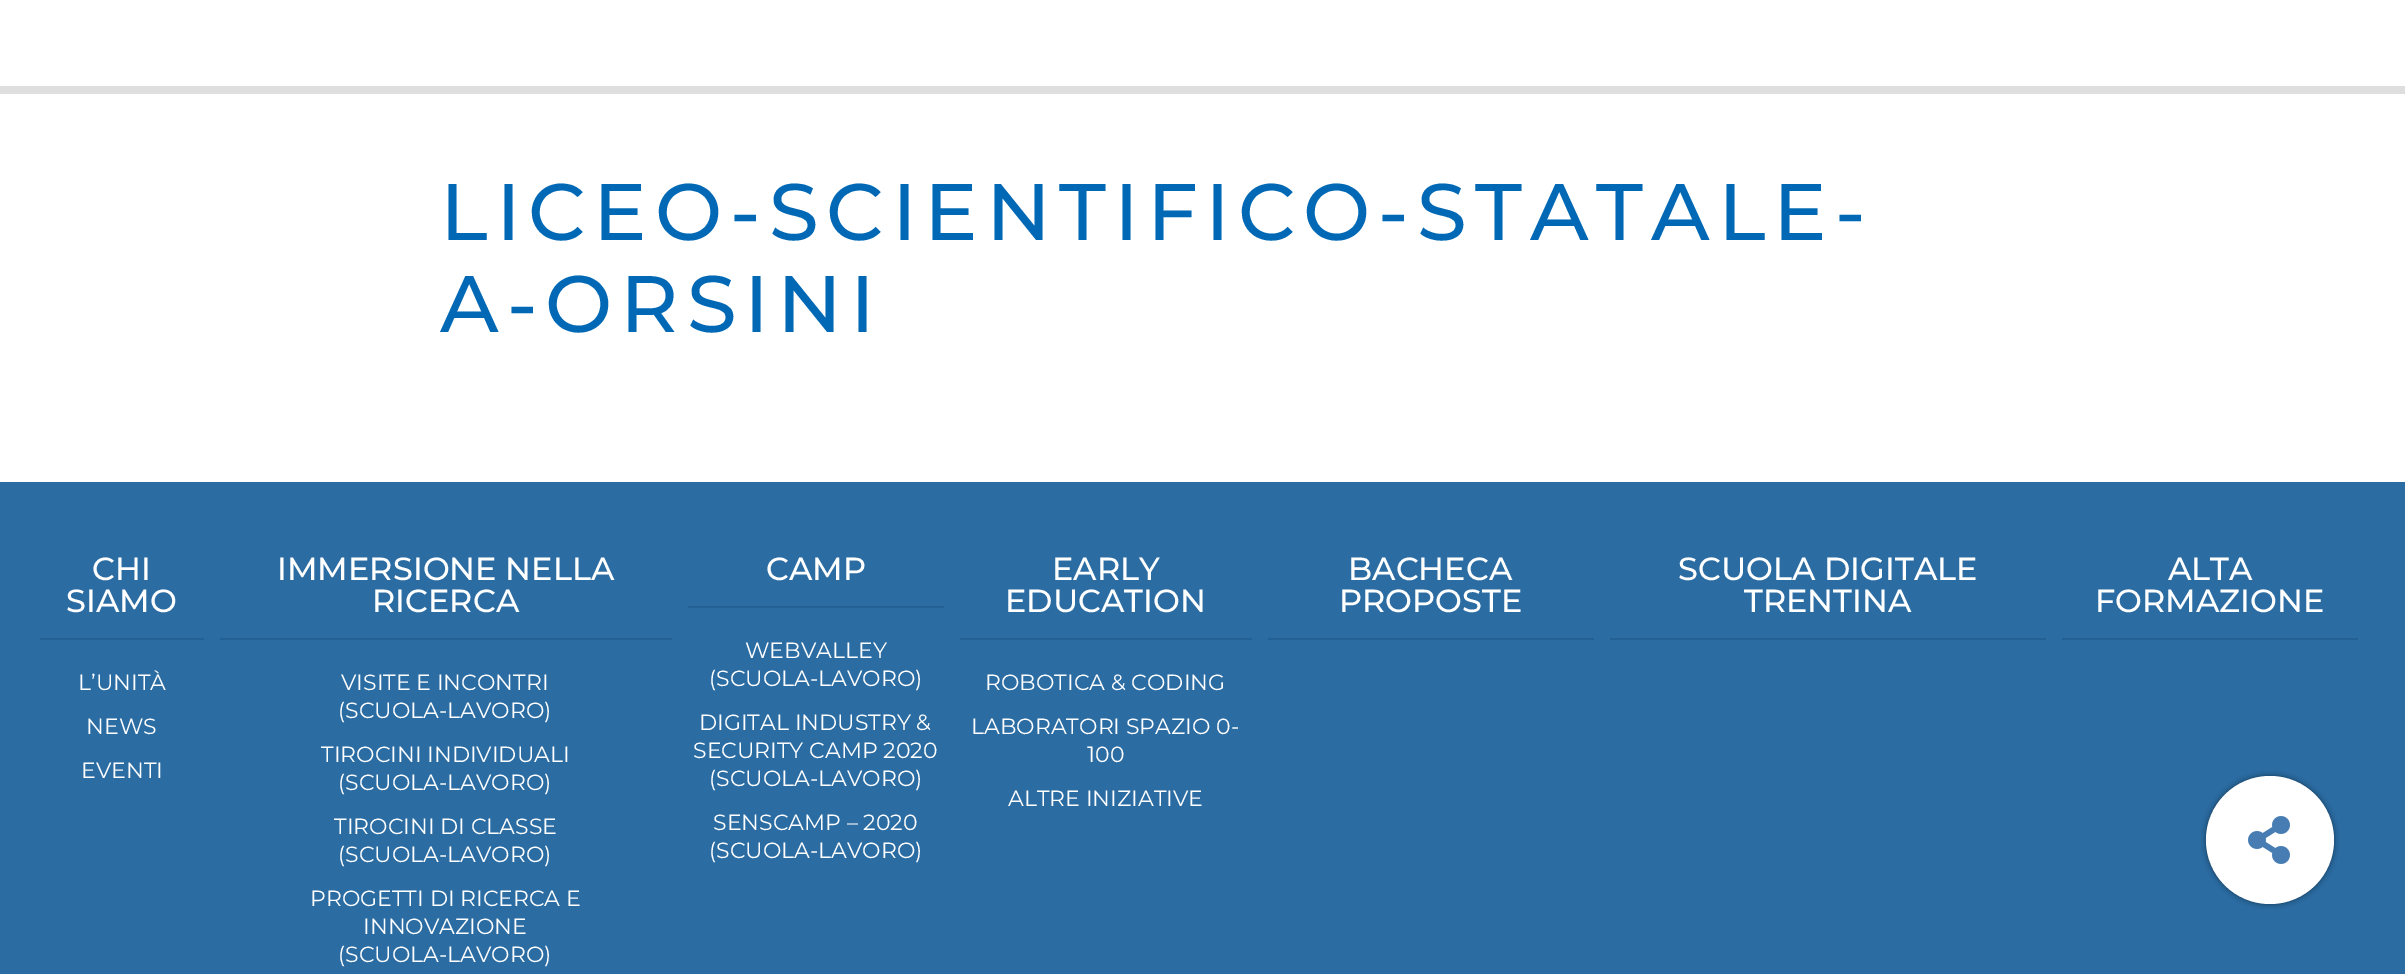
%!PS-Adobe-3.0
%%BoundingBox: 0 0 2405 974
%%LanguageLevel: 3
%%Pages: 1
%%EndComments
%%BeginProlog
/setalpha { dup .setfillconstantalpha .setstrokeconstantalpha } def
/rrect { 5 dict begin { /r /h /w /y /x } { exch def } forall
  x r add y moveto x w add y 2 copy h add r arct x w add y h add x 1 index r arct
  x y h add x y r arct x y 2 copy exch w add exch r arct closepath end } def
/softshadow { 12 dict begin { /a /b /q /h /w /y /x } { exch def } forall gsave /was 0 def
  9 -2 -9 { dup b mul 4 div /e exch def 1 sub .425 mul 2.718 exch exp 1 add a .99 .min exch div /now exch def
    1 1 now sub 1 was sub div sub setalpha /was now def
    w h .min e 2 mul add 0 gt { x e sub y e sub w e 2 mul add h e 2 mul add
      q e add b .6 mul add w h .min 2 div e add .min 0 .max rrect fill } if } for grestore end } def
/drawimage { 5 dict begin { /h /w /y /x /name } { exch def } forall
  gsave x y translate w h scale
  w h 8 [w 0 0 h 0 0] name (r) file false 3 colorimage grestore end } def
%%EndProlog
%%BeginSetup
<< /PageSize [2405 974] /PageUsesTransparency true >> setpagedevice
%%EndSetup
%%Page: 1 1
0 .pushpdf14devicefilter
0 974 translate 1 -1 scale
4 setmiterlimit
1 setgray
0 0 2405 974 rectfill
0.871 setgray
0 86 2405 8 rectfill
0.169 0.424 0.639 setrgbcolor
0 482 2405 492 rectfill
0.137 0.38 0.584 setrgbcolor
40 638 164 2 rectfill
220 638 452 2 rectfill
688 606 256 2 rectfill
960 638 292 2 rectfill
1268 638 326 2 rectfill
1610 638 436 2 rectfill
2062 638 296 2 rectfill
0 setgray
2206 776 128 128 64 3 0.5 softshadow
1 setgray
newpath 2270 840 64 0 360 arc closepath fill
(images/1.raw) 2248 816 42 48 drawimage
/Montserrat-Medium [80 0 0 -80 0 0] selectfont
0 0.408 0.706 setrgbcolor
440 240 moveto 8 0 (LICEO-SCIENTIFICO-STATALE-) ashow
440 332 moveto 8 0 (A-ORSINI) ashow
/Montserrat-Medium [32 0 0 -32 0 0] selectfont
1 setgray
92 580 moveto (CHI) show
66 612 moveto (SIAMO) show
/Montserrat-Regular [22 0 0 -22 0 0] selectfont
78 690 moveto (L’UNITÀ) show
86 734 moveto (NEWS) show
81 778 moveto (EVENTI) show
/Montserrat-Medium [32 0 0 -32 0 0] selectfont
277 580 moveto (IMMERSIONE NELLA) show
372 612 moveto (RICERCA) show
/Montserrat-Regular [22 0 0 -22 0 0] selectfont
341 690 moveto (VISITE E INCONTRI) show
338 718 moveto (\(SCUOLA-LAVORO\)) show
321 762 moveto (TIROCINI INDIVIDUALI) show
338 790 moveto (\(SCUOLA-LAVORO\)) show
334 834 moveto (TIROCINI DI CLASSE) show
338 862 moveto (\(SCUOLA-LAVORO\)) show
310 906 moveto (PROGETTI DI RICERCA E) show
363 934 moveto (INNOVAZIONE) show
338 962 moveto (\(SCUOLA-LAVORO\)) show
/Montserrat-Medium [32 0 0 -32 0 0] selectfont
766 580 moveto (CAMP) show
/Montserrat-Regular [22 0 0 -22 0 0] selectfont
745 658 moveto (WEBVALLEY) show
709 686 moveto (\(SCUOLA-LAVORO\)) show
699 730 moveto (DIGITAL INDUSTRY &) show
693 758 moveto (SECURITY CAMP 2020) show
709 786 moveto (\(SCUOLA-LAVORO\)) show
713 830 moveto (SENSCAMP – 2020) show
709 858 moveto (\(SCUOLA-LAVORO\)) show
/Montserrat-Medium [32 0 0 -32 0 0] selectfont
1052 580 moveto (EARLY) show
1005 612 moveto (EDUCATION) show
/Montserrat-Regular [22 0 0 -22 0 0] selectfont
985 690 moveto (ROBOTICA & CODING) show
971 734 moveto (LABORATORI SPAZIO 0-) show
1087 762 moveto (100) show
1008 806 moveto (ALTRE INIZIATIVE) show
/Montserrat-Medium [32 0 0 -32 0 0] selectfont
1348 580 moveto (BACHECA) show
1339 612 moveto (PROPOSTE) show
1678 580 moveto (SCUOLA DIGITALE) show
1744 612 moveto (TRENTINA) show
2168 580 moveto (ALTA) show
2095 612 moveto (FORMAZIONE) show
.poppdf14devicefilter showpage
%%EOF
